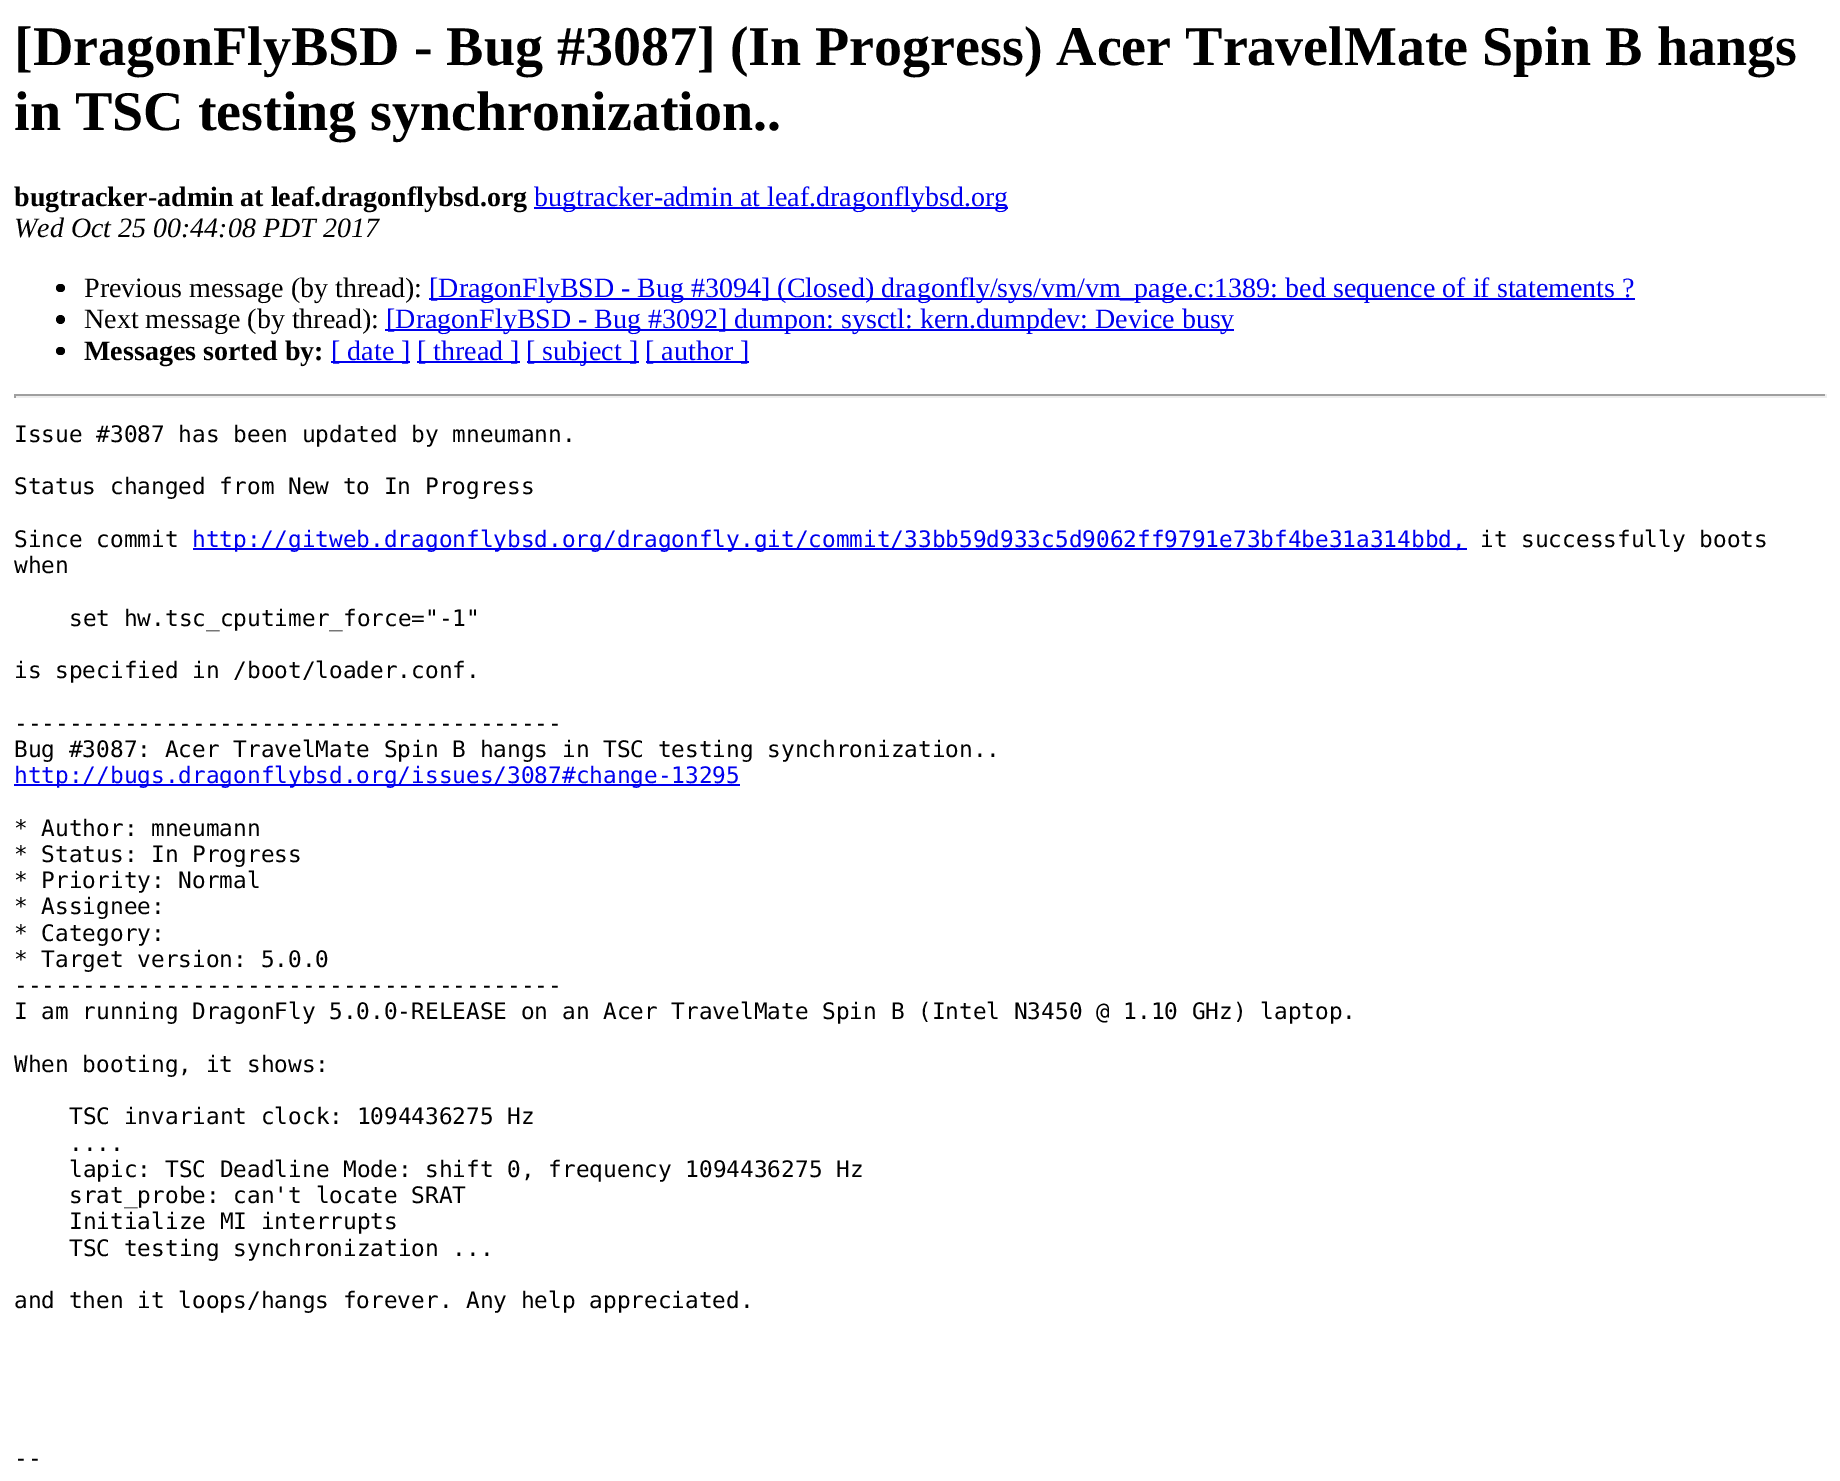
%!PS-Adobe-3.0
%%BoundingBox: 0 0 1840 1481
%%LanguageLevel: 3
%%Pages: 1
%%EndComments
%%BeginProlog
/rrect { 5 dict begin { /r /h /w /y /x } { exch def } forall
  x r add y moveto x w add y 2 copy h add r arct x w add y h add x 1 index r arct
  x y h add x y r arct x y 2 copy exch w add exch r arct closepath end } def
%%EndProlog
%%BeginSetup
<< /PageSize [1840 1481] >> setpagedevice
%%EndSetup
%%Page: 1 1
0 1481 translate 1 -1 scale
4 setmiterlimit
1 setgray
0 0 1840 1481 rectfill
0 0 0.933 setrgbcolor
534 207 474 2 rectfill
0 setgray
56 284 9 8 4 rrect fill
0 0 0.933 setrgbcolor
429 298 1206 2 rectfill
0 setgray
newpath 60.5 319.5 4.5 0 360 arc closepath fill
0 0 0.933 setrgbcolor
385 329 849 2 rectfill
0 setgray
56 347 9 8 4 rrect fill
0 0 0.933 setrgbcolor
331 361 79 2 rectfill
417 361 103 2 rectfill
527 361 112 2 rectfill
646 361 103 2 rectfill
0.624 setgray
14 394 1813 2 rectfill
0.933 setgray
1825 394 2 4 rectfill
14 396 1813 2 rectfill
0.624 setgray
14 394 2 4 rectfill
0 0 0.933 setrgbcolor
193 548 1274 2 rectfill
14 784 726 2 rectfill
/LiberationSerif-Bold [56 0 0 -56 0 0] selectfont
0 setgray
14 65 moveto ([DragonFlyBSD - Bug #3087] \(In Progress\) Acer TravelMate Spin B hangs) show
14 130 moveto (in TSC testing synchronization..) show
/LiberationSerif-Bold [28 0 0 -28 0 0] selectfont
14 206 moveto (bugtracker-admin at leaf.dragonflybsd.org) show
/LiberationSerif-Regular [28 0 0 -28 0 0] selectfont
0 0 0.933 setrgbcolor
534 206 moveto (bugtracker-admin at leaf.dragonflybsd.org) show
/LiberationSerif-Italic [28 0 0 -28 0 0] selectfont
0 setgray
14 237 moveto (Wed Oct 25 00:44:08 PDT 2017) show
/LiberationSerif-Regular [28 0 0 -28 0 0] selectfont
84 297 moveto (Previous message \(by thread\):) show
0 0 0.933 setrgbcolor
429 297 moveto ([DragonFlyBSD - Bug #3094] \(Closed\) dragonfly/sys/vm/vm_page.c:1389: bed sequence of if statements ?) show
0 setgray
84 328 moveto (Next message \(by thread\):) show
0 0 0.933 setrgbcolor
386 328 moveto ([DragonFlyBSD - Bug #3092] dumpon: sysctl: kern.dumpdev: Device busy) show
/LiberationSerif-Bold [28 0 0 -28 0 0] selectfont
0 setgray
84 360 moveto (Messages sorted by:) show
/LiberationSerif-Regular [28 0 0 -28 0 0] selectfont
0 0 0.933 setrgbcolor
331 360 moveto ([ date ]) show
417 360 moveto ([ thread ]) show
526 360 moveto ([ subject ]) show
645 360 moveto ([ author ]) show
/DejaVuSansMono-Regular [22.75 0 0 -22.75 0 0] selectfont
0 setgray
14 442 moveto (Issue #3087 has been updated by mneumann.) show
14 494 moveto (Status changed from New to In Progress) show
14 547 moveto (Since commit) show
0 0 0.933 setrgbcolor
192 547 moveto (http://gitweb.dragonflybsd.org/dragonfly.git/commit/33bb59d933c5d9062ff9791e73bf4be31a314bbd,) show
0 setgray
1480 547 moveto (it successfully boots) show
14 573 moveto (when) show
69 626 moveto (set hw.tsc_cputimer_force="-1") show
14 678 moveto (is specified in /boot/loader.conf.) show
14 731 moveto (----------------------------------------) show
14 757 moveto (Bug #3087: Acer TravelMate Spin B hangs in TSC testing synchronization..) show
0 0 0.933 setrgbcolor
14 783 moveto (http://bugs.dragonflybsd.org/issues/3087#change-13295) show
0 setgray
14 836 moveto (* Author: mneumann) show
14 862 moveto (* Status: In Progress) show
14 888 moveto (* Priority: Normal) show
14 914 moveto (* Assignee:) show
14 941 moveto (* Category:) show
14 967 moveto (* Target version: 5.0.0) show
14 993 moveto (----------------------------------------) show
14 1019 moveto (I am running DragonFly 5.0.0-RELEASE on an Acer TravelMate Spin B \(Intel N3450 @ 1.10 GHz\) laptop.) show
14 1072 moveto (When booting, it shows:) show
69 1124 moveto (TSC invariant clock: 1094436275 Hz) show
69 1151 moveto (....) show
69 1177 moveto (lapic: TSC Deadline Mode: shift 0, frequency 1094436275 Hz) show
69 1203 moveto (srat_probe: can't locate SRAT) show
69 1229 moveto (Initialize MI interrupts) show
69 1256 moveto (TSC testing synchronization ...) show
14 1308 moveto (and then it loops/hangs forever. Any help appreciated.) show
14 1466 moveto (--) show
showpage
%%EOF
